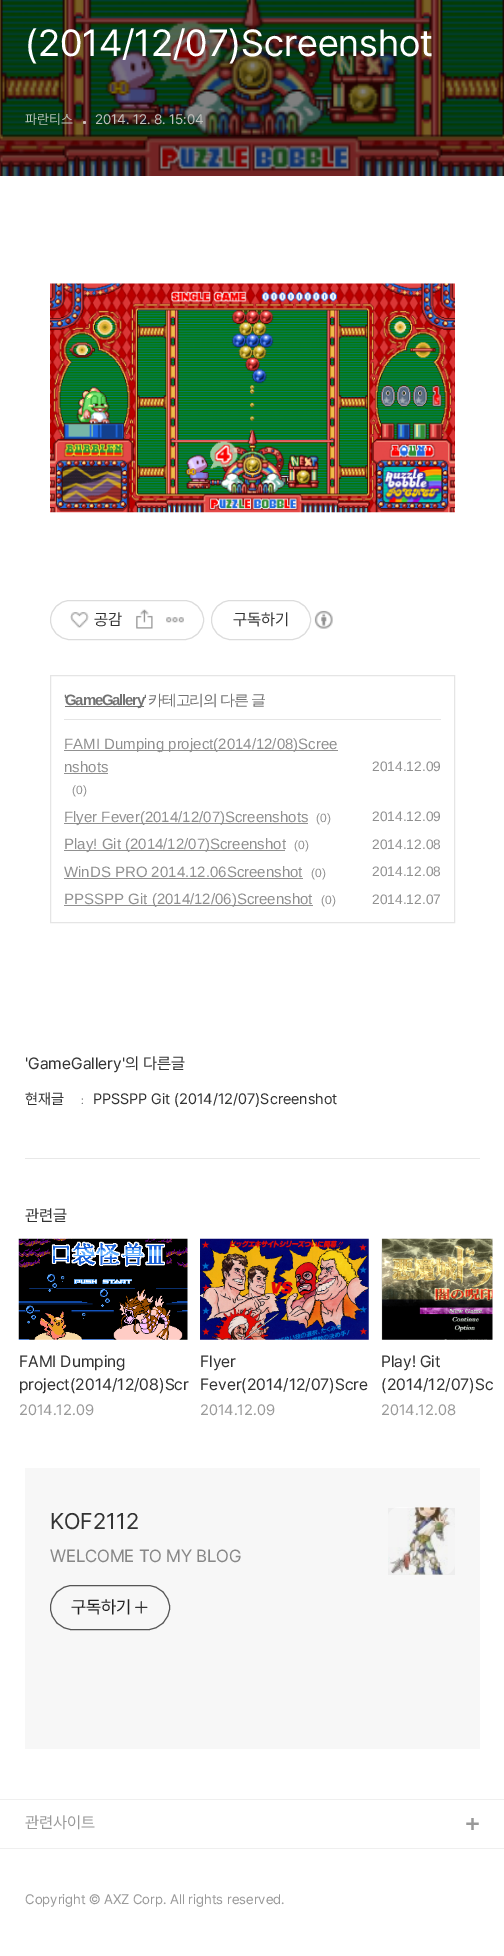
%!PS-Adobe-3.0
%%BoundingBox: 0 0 504 1956
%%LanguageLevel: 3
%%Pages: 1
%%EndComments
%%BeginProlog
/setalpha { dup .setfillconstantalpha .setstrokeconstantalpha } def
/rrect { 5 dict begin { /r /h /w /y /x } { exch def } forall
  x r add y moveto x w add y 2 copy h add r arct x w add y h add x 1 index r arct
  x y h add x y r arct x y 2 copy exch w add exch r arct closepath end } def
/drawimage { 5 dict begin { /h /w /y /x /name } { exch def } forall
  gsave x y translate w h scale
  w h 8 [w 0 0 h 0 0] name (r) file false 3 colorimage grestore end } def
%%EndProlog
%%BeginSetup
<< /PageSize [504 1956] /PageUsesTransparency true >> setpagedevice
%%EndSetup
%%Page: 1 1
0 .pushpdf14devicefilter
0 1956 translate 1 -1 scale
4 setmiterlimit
1 setgray
0 0 504 1956 rectfill
(images/1.raw) 0 0 504 176 drawimage
0.7 setalpha
newpath 84.5 122.5 1.5 0 360 arc closepath fill
1 setalpha
(images/2.raw) 50 283 405 230 drawimage
0.863 setgray
50.5 600.5 153 39 19.5 rrect stroke
(images/3.raw) 70 612 19 16 drawimage
(images/4.raw) 136 609 17 20 drawimage
(images/5.raw) 166 617 18 6 drawimage
211.5 600.5 99 39 19.5 rrect stroke
(images/6.raw) 314 610 19 19 drawimage
0.898 setgray
50.5 675.5 404 247 rectstroke
64 719 377 1 rectfill
0.451 setgray
65 706 79 1 rectfill
0.565 setgray
64 750 274 1 rectfill
64 773 44 1 rectfill
64 823 244 1 rectfill
64 850 221 1 rectfill
64 878 239 1 rectfill
64 905 249 1 rectfill
0.91 setgray
25 1158 455 1 rectfill
(images/7.raw) 18 1238 170 102 drawimage
(images/8.raw) 200 1238 169 102 drawimage
(images/9.raw) 381 1238 112 102 drawimage
0.969 setgray
25 1468 455 281 rectfill
0.333 setgray
50.5 1585.5 119 44 22 rrect stroke
(images/10.raw) 135 1601 13 13 drawimage
(images/11.raw) 388 1507 67 68 drawimage
0.04 setalpha
0 setgray
388 1508 67 67 rectfill
1 setalpha
0.937 setgray
0 1799 504 1 rectfill
(images/12.raw) 466 1818 13 12 drawimage
0 1848 504 1 rectfill
/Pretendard-Regular [37.5 0 0 -37.5 0 0] selectfont
1 setgray
25 56 moveto (\(2014/12/07\)Screenshot) show
/Pretendard-Regular [13.75 0 0 -13.75 0 0] selectfont
0.722 0.769 0.729 setrgbcolor
25 124 moveto (파란티스) show
0.757 0.761 0.745 setrgbcolor
95 124 moveto (2014. 12. 8. 15:04) show
/Pretendard-Regular [16.25 0 0 -16.25 0 0] selectfont
0.2 setgray
94 625 moveto (공감) show
233 625 moveto (구독하기) show
/LiberationSans-Regular [15 0 0 -15 0 0] selectfont
0.451 setgray
64 705 moveto -1.25 0 (') ashow
/WenQuanYiZenHei-Medium [15 0 0 -15 0 0] selectfont
148 705 moveto -1.25 0 (카테고리의 다른 글) ashow
/LiberationSans-Bold [15 0 0 -15 0 0] selectfont
65 705 moveto -1.25 0 (GameGallery) ashow
/LiberationSans-Regular [15 0 0 -15 0 0] selectfont
144 705 moveto -1.25 0 (') ashow
0.565 setgray
64 749 moveto (FAMI Dumping project\(2014/12/08\)Scree) show
64 772 moveto (nshots) show
/LiberationSans-Regular [12 0 0 -12 0 0] selectfont
72 794 moveto (\(0\)) show
/LiberationSans-Regular [13.75 0 0 -13.75 0 0] selectfont
372 771 moveto (2014.12.09) show
/LiberationSans-Regular [15 0 0 -15 0 0] selectfont
64 822 moveto (Flyer Fever\(2014/12/07\)Screenshots) show
/LiberationSans-Regular [12 0 0 -12 0 0] selectfont
316 822 moveto (\(0\)) show
/LiberationSans-Regular [13.75 0 0 -13.75 0 0] selectfont
372 821 moveto (2014.12.09) show
/LiberationSans-Regular [15 0 0 -15 0 0] selectfont
64 849 moveto (Play! Git \(2014/12/07\)Screenshot) show
/LiberationSans-Regular [12 0 0 -12 0 0] selectfont
294 849 moveto (\(0\)) show
/LiberationSans-Regular [13.75 0 0 -13.75 0 0] selectfont
372 849 moveto (2014.12.08) show
/LiberationSans-Regular [15 0 0 -15 0 0] selectfont
64 877 moveto (WinDS PRO 2014.12.06Screenshot) show
/LiberationSans-Regular [12 0 0 -12 0 0] selectfont
311 877 moveto (\(0\)) show
/LiberationSans-Regular [13.75 0 0 -13.75 0 0] selectfont
372 876 moveto (2014.12.08) show
/LiberationSans-Regular [15 0 0 -15 0 0] selectfont
64 904 moveto (PPSSPP Git \(2014/12/06\)Screenshot) show
/LiberationSans-Regular [12 0 0 -12 0 0] selectfont
321 904 moveto (\(0\)) show
/LiberationSans-Regular [13.75 0 0 -13.75 0 0] selectfont
372 904 moveto (2014.12.07) show
/Pretendard-Regular [16.25 0 0 -16.25 0 0] selectfont
0.2 setgray
25 1069 moveto ('GameGallery'의 다른글) show
/Pretendard-Regular [15 0 0 -15 0 0] selectfont
25 1104 moveto (현재글) show
/Pretendard-Regular [11 0 0 -11 0 0] selectfont
0.451 setgray
81 1104 moveto (:) show
/Pretendard-Regular [15 0 0 -15 0 0] selectfont
0.2 setgray
93 1104 moveto (PPSSPP Git \(2014/12/07\)Screenshot) show
/Pretendard-Regular [16.25 0 0 -16.25 0 0] selectfont
25 1221 moveto (관련글) show
19 1367 moveto (FAMI Dumping) show
19 1390 moveto (project\(2014/12/08\)Scr) show
/Pretendard-Regular [15 0 0 -15 0 0] selectfont
0.6 setgray
19 1415 moveto (2014.12.09) show
/Pretendard-Regular [16.25 0 0 -16.25 0 0] selectfont
0.2 setgray
200 1367 moveto (Flyer) show
200 1390 moveto (Fever\(2014/12/07\)Scre) show
/Pretendard-Regular [15 0 0 -15 0 0] selectfont
0.6 setgray
200 1415 moveto (2014.12.09) show
/Pretendard-Regular [16.25 0 0 -16.25 0 0] selectfont
0.2 setgray
381 1367 moveto (Play! Git) show
381 1390 moveto (\(2014/12/07\)Sc) show
/Pretendard-Regular [15 0 0 -15 0 0] selectfont
0.6 setgray
381 1415 moveto (2014.12.08) show
/Pretendard-Regular [22.5 0 0 -22.5 0 0] selectfont
0.2 setgray
50 1529 moveto (KOF2112) show
/Pretendard-Regular [17.5 0 0 -17.5 0 0] selectfont
0.533 setgray
50 1562 moveto -0.1 0 (WELCOME TO MY BLOG) ashow
0.133 setgray
71 1613 moveto (구독하기) show
/Pretendard-Regular [16.25 0 0 -16.25 0 0] selectfont
0.6 setgray
25 1828 moveto (관련사이트) show
/Pretendard-Regular [13.75 0 0 -13.75 0 0] selectfont
25 1904 moveto (Copyright © AXZ Corp. All rights reserved.) show
.poppdf14devicefilter showpage
%%EOF
